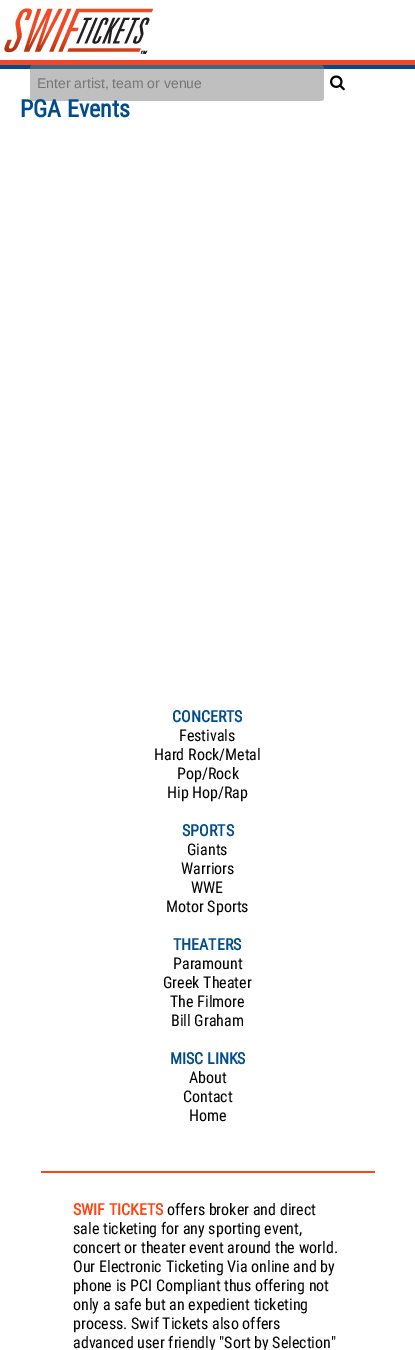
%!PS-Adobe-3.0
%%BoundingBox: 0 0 415 1350
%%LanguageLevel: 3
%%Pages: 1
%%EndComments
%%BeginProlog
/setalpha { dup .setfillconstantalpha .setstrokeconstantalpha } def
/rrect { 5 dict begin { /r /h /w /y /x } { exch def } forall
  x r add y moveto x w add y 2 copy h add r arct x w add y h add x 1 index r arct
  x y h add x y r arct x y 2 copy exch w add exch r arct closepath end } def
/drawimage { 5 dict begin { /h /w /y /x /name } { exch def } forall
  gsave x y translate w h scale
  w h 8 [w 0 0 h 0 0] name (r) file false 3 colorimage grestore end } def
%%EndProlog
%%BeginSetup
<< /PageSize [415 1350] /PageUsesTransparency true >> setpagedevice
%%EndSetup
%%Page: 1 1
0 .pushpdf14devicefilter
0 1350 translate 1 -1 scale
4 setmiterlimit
1 setgray
0 0 415 1350 rectfill
0.004 0.298 0.553 setrgbcolor
0 65 415 4 rectfill
0.937 0.29 0.141 setrgbcolor
0 60 415 5 rectfill
(images/1.raw) 4 8 150 46 drawimage
0.5 setalpha
0.502 setgray
30 65 294 36 3 rrect fill
1 setalpha
(images/2.raw) 330 75 15 16 drawimage
1 0.275 0.071 setrgbcolor
41 1171 334 2 rectfill
/LiberationSans-Regular [14 0 0 -14 0 0] selectfont
0.459 setgray
37 88 moveto (Enter artist, team or venue) show
/RobotoCondensed-Bold [24 0 0 -24 0 0] selectfont
0.004 0.298 0.553 setrgbcolor
20 117 moveto (PGA Events) show
/RobotoCondensed-Bold [16 0 0 -16 0 0] selectfont
172 722 moveto (CONCERTS) show
/RobotoCondensed-Regular [16 0 0 -16 0 0] selectfont
0 setgray
179 741 moveto (Festivals) show
154 760 moveto (Hard Rock/Metal) show
177 779 moveto (Pop/Rock) show
167 798 moveto (Hip Hop/Rap) show
/RobotoCondensed-Bold [16 0 0 -16 0 0] selectfont
0.004 0.298 0.553 setrgbcolor
182 836 moveto (SPORTS) show
/RobotoCondensed-Regular [16 0 0 -16 0 0] selectfont
0 setgray
187 855 moveto (Giants) show
181 874 moveto (Warriors) show
191 893 moveto (WWE) show
166 912 moveto (Motor Sports) show
/RobotoCondensed-Bold [16 0 0 -16 0 0] selectfont
0.004 0.298 0.553 setrgbcolor
173 950 moveto (THEATERS) show
/RobotoCondensed-Regular [16 0 0 -16 0 0] selectfont
0 setgray
173 969 moveto (Paramount) show
163 988 moveto (Greek Theater) show
170 1007 moveto (The Filmore) show
171 1026 moveto (Bill Graham) show
/RobotoCondensed-Bold [16 0 0 -16 0 0] selectfont
0.004 0.298 0.553 setrgbcolor
170 1064 moveto (MISC LINKS) show
/RobotoCondensed-Regular [16 0 0 -16 0 0] selectfont
0 setgray
189 1083 moveto (About) show
183 1102 moveto (Contact) show
189 1121 moveto (Home) show
/RobotoCondensed-Bold [16 0 0 -16 0 0] selectfont
1 0.275 0.071 setrgbcolor
73 1215 moveto (SWIF TICKETS) show
/RobotoCondensed-Regular [16 0 0 -16 0 0] selectfont
0 setgray
167 1215 moveto (offers broker and direct) show
73 1234 moveto (sale ticketing for any sporting event,) show
73 1253 moveto (concert or theater event around the world.) show
73 1272 moveto (Our Electronic Ticketing Via online and by) show
73 1291 moveto (phone is PCI Compliant thus offering not) show
73 1310 moveto (only a safe but an expedient ticketing) show
73 1329 moveto (process. Swif Tickets also offers) show
73 1348 moveto (advanced user friendly "Sort by Selection") show
.poppdf14devicefilter showpage
%%EOF
